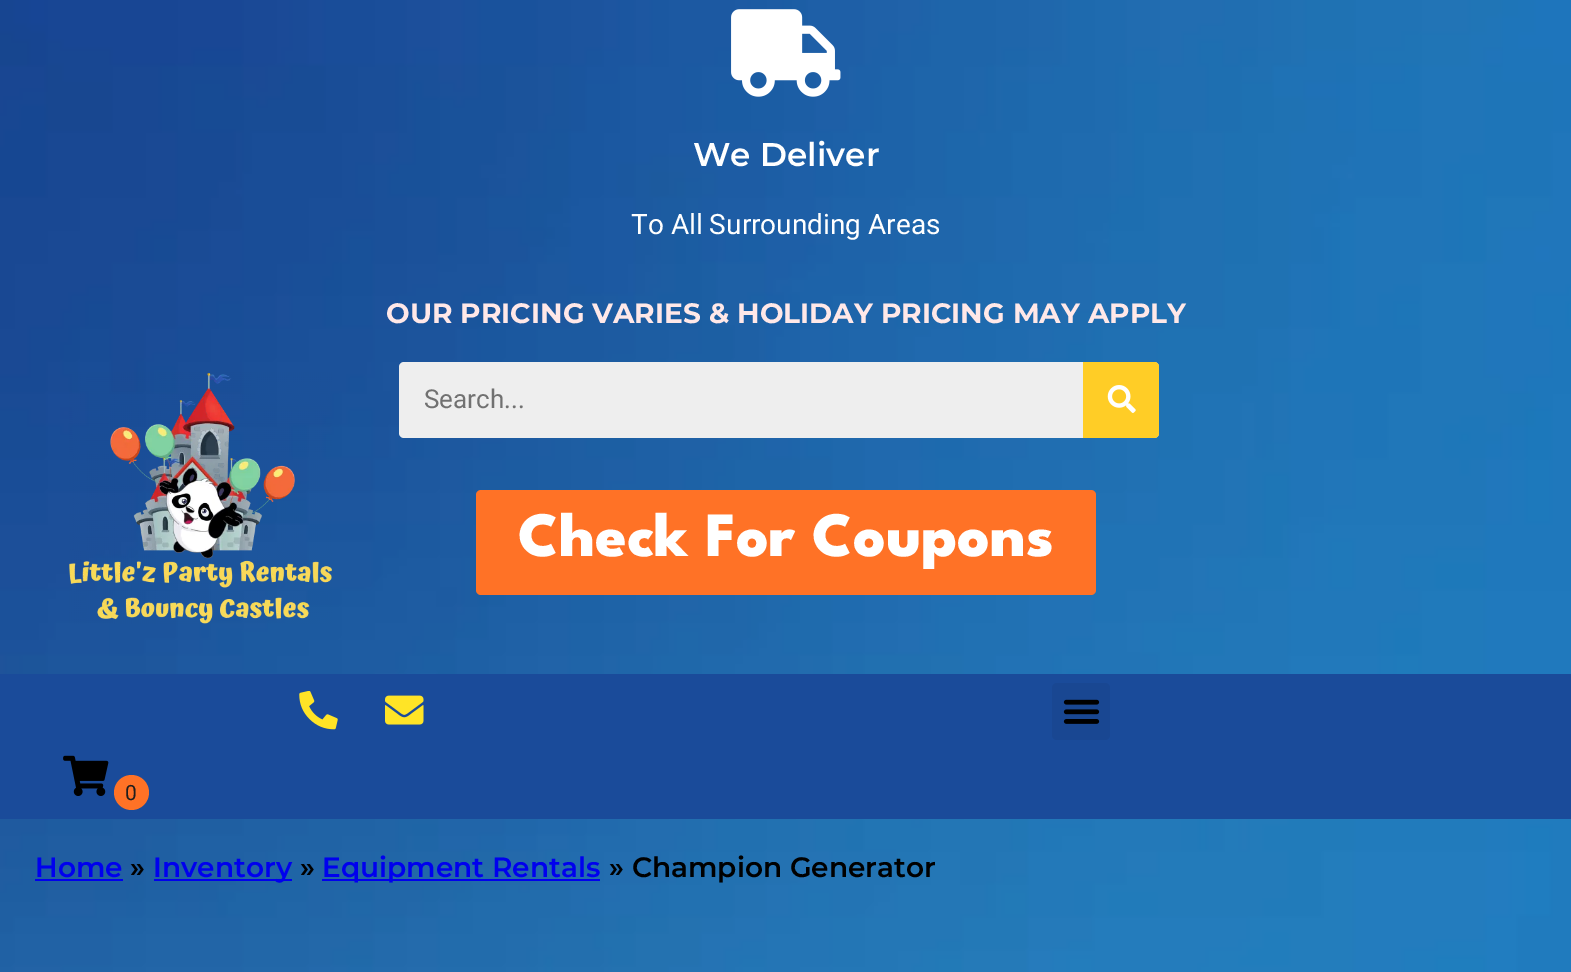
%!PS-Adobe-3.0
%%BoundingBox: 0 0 1571 972
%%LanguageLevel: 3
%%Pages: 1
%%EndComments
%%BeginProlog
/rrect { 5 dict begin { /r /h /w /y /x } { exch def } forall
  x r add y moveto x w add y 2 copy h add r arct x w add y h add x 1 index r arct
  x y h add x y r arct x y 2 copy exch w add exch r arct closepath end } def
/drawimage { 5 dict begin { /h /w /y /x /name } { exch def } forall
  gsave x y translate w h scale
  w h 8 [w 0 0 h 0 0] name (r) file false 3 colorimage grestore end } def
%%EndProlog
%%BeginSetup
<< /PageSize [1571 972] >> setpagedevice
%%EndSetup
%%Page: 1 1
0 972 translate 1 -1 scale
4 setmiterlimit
1 setgray
0 0 1571 972 rectfill
(images/1.raw) 0 0 1571 972 drawimage
(images/2.raw) 731 9 110 88 drawimage
(images/3.raw) 69 372 263 252 drawimage
0.933 setgray
399 362 760 76 5 rrect fill
1 0.804 0.149 setrgbcolor
newpath 1083 362 moveto 1154 362 lineto 1157 362 1159 364 1159 367 curveto 1159 433 lineto 1159 436 1157 438 1154 438 curveto 1083 438 lineto closepath fill
(images/4.raw) 1107 385 29 28 drawimage
1 0.447 0.149 setrgbcolor
476 490 620 105 5 rrect fill
0.102 0.294 0.604 setrgbcolor
0 674 1571 145 rectfill
(images/5.raw) 299 691 39 39 drawimage
(images/6.raw) 385 695 39 30 drawimage
0.098 0.278 0.573 setrgbcolor
1052 683 58 57 5 rrect fill
(images/7.raw) 1063 699 37 25 drawimage
(images/8.raw) 63 755 46 41 drawimage
1 0.447 0.149 setrgbcolor
newpath 131.5 792.5 17.5 0 360 arc closepath fill
0 0 0.933 setrgbcolor
35 879 88 2 rectfill
154 879 138 2 rectfill
322 879 278 2 rectfill
/Montserrat-SemiBold [32.75 0 0 -32.75 0 0] selectfont
1 setgray
693 166 moveto (We Deliver) show
/Roboto-Regular [28 0 0 -28 0 0] selectfont
631 234 moveto (To All Surrounding Areas) show
/Montserrat-Bold [28 0 0 -28 0 0] selectfont
1 0.91 0.91 setrgbcolor
386 323 moveto (OUR PRICING VARIES & HOLIDAY PRICING MAY APPLY) show
/Roboto-Regular [26 0 0 -26 0 0] selectfont
0.443 setgray
424 408 moveto (Search...) show
/LeagueSpartan-ExtraBold [63 0 0 -63 0 0] selectfont
1 setgray
518 556 moveto (Check For Coupons) show
/Roboto-Regular [21 0 0 -21 0 0] selectfont
0.118 setgray
125 800 moveto (0) show
/Montserrat-SemiBold [28 0 0 -28 0 0] selectfont
0 0 0.933 setrgbcolor
35 877 moveto (Home) show
0 setgray
130 877 moveto (») show
0 0 0.933 setrgbcolor
153 877 moveto (Inventory) show
0 setgray
300 877 moveto (») show
0 0 0.933 setrgbcolor
322 877 moveto (Equipment Rentals) show
0 setgray
609 877 moveto (» Champion Generator) show
showpage
%%EOF
